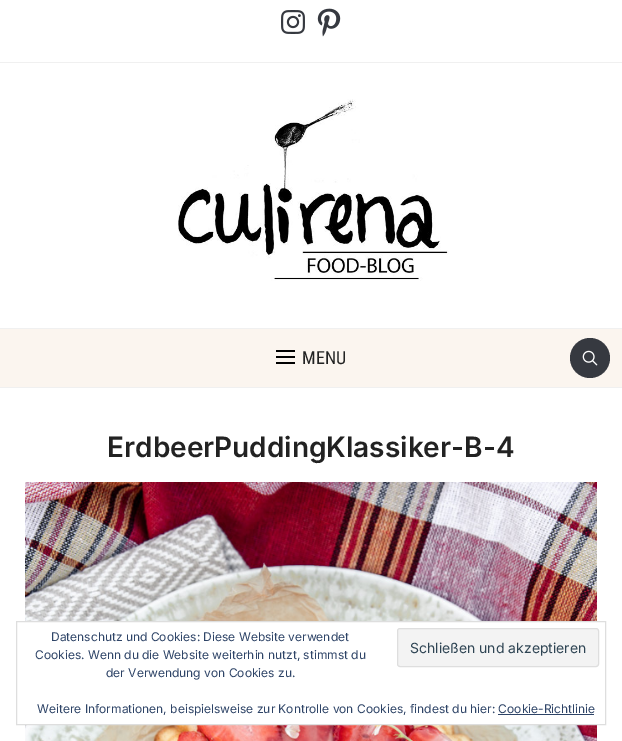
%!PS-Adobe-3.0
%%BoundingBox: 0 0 622 741
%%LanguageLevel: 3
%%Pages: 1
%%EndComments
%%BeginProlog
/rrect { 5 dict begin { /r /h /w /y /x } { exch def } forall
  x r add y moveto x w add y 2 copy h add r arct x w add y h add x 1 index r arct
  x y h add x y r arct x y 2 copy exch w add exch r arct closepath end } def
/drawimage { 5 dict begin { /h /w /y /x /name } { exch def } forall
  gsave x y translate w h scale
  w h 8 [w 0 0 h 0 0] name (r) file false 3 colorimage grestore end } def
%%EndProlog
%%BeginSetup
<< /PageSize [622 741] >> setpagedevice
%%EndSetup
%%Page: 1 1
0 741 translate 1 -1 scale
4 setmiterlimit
1 setgray
0 0 622 741 rectfill
0.941 setgray
0 62 622 1 rectfill
(images/1.raw) 281 10 24 24 drawimage
(images/2.raw) 317 8 24 29 drawimage
(images/3.raw) 178 99 271 182 drawimage
0.984 0.961 0.937 setrgbcolor
0 329 622 58 rectfill
0.941 setgray
0 328 622 1 rectfill
0 387 622 1 rectfill
0 setgray
276 350 19 2 rectfill
276 356 19 2 rectfill
276 362 19 2 rectfill
0.212 0.224 0.251 setrgbcolor
newpath 590 358 20 0 360 arc closepath fill
(images/4.raw) 582 350 16 16 drawimage
(images/5.raw) 25 482 572 259 drawimage
1 setgray
25 622 572 102 rectfill
0.871 setgray
16.5 621.5 589 103 rectstroke
0.953 setgray
397.5 628.5 201 38 2.5 rrect gsave fill grestore
0.871 setgray
stroke
0.18 0.267 0.404 setrgbcolor
498 714 96 1 rectfill
/RobotoCondensed-Regular [18 0 0 -18 0 0] selectfont
0.133 setgray
302 364 moveto (MENU) show
/Inter-SemiBold [28 0 0 -28 0 0] selectfont
107 457 moveto (ErdbeerPuddingKlassiker-B-4) show
/Inter-Regular [12 0 0 -12 0 0] selectfont
0.18 0.267 0.404 setrgbcolor
51 641 moveto (Datenschutz und Cookies: Diese Website verwendet) show
35 659 moveto (Cookies. Wenn du die Website weiterhin nutzt, stimmst du) show
/Inter-Regular [14 0 0 -14 0 0] selectfont
0.18 0.267 0.325 setrgbcolor
410 653 moveto (Schließen und akzeptieren) show
/Inter-Regular [12 0 0 -12 0 0] selectfont
0.18 0.267 0.404 setrgbcolor
106 677 moveto (der Verwendung von Cookies zu.) show
37 713 moveto (Weitere Informationen, beispielsweise zur Kontrolle von Cookies, findest du hier: Cookie-Richtlinie) show
showpage
%%EOF
